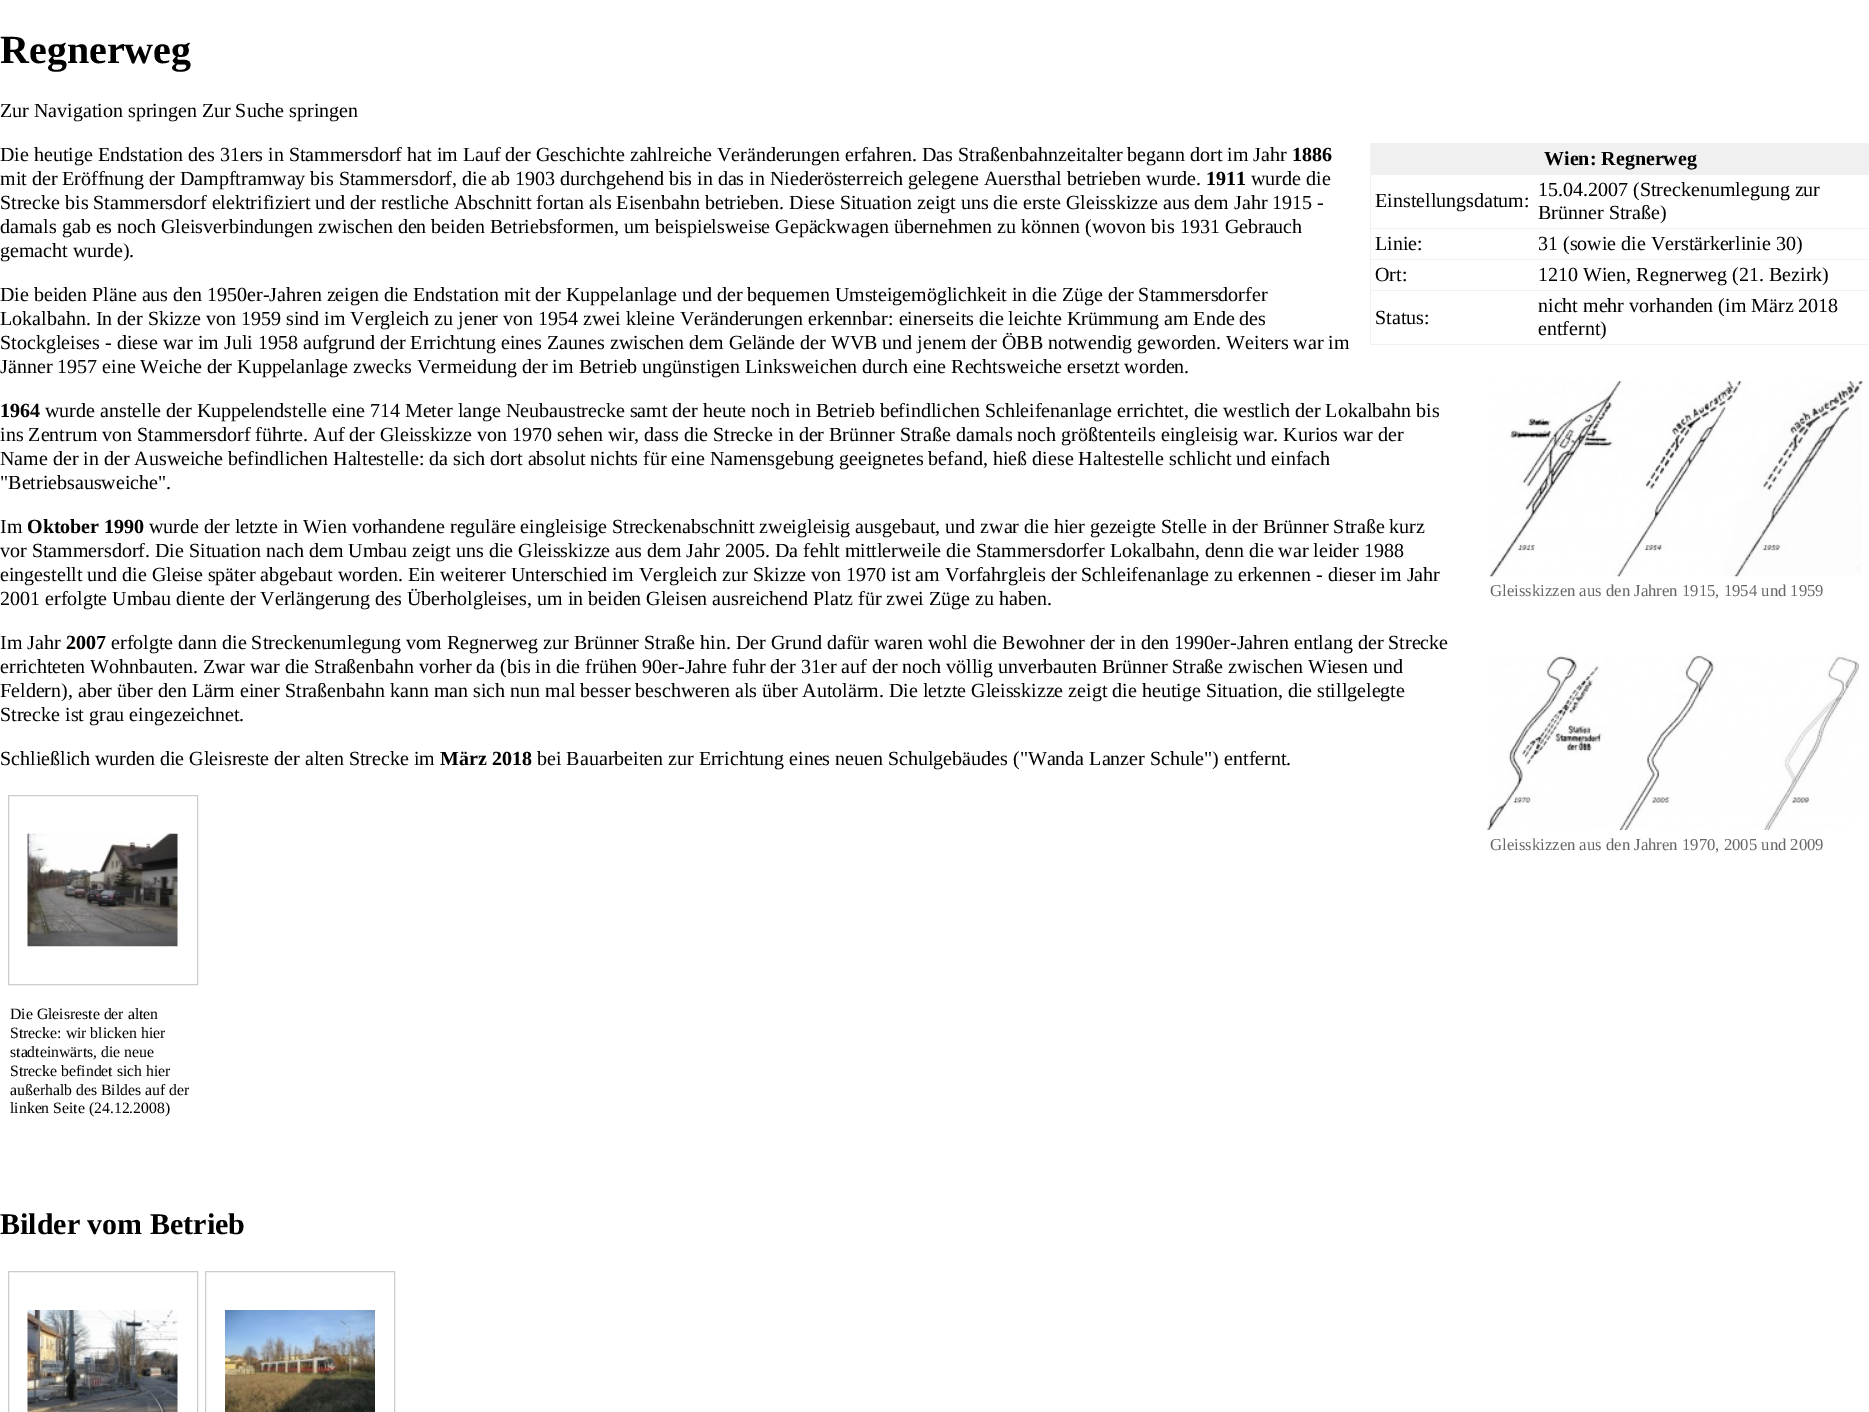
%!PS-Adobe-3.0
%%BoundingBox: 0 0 1869 1412
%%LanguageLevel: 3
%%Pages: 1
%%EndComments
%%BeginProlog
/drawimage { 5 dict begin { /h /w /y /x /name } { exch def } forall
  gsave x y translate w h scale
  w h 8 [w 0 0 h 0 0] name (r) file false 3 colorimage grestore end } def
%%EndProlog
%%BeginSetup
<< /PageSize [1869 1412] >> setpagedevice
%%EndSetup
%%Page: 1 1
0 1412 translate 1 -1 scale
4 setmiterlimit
1 setgray
0 0 1869 1412 rectfill
0.941 setgray
1370 143 499 202 rectfill
1 setgray
1371 175 498 53 rectfill
1371 229 498 30 rectfill
1371 260 498 30 rectfill
1371 291 498 53 rectfill
(images/1.raw) 1488 381 375 196 drawimage
(images/2.raw) 1487 655 373 175 drawimage
0.8 setgray
8.5 795.5 189 189 rectstroke
(images/3.raw) 27 833 151 114 drawimage
8.5 1271.5 189 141 rectstroke
(images/4.raw) 27 1310 151 102 drawimage
205.5 1271.5 189 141 rectstroke
(images/5.raw) 225 1310 150 102 drawimage
/LiberationSerif-Bold [40 0 0 -40 0 0] selectfont
0 setgray
0 63 moveto (Regnerweg) show
/LiberationSerif-Regular [20 0 0 -20 0 0] selectfont
0 117 moveto (Zur Navigation springen Zur Suche springen) show
0 161 moveto (Die heutige Endstation des 31ers in Stammersdorf hat im Lauf der Geschichte zahlreiche Veränderungen erfahren. Das Straßenbahnzeitalter begann dort im Jahr) show
/LiberationSerif-Bold [20 0 0 -20 0 0] selectfont
1292 161 moveto (1886) show
/LiberationSerif-Regular [20 0 0 -20 0 0] selectfont
0 185 moveto (mit der Eröffnung der Dampftramway bis Stammersdorf, die ab 1903 durchgehend bis in das in Niederösterreich gelegene Auersthal betrieben wurde.) show
/LiberationSerif-Bold [20 0 0 -20 0 0] selectfont
1206 185 moveto (1911) show
/LiberationSerif-Regular [20 0 0 -20 0 0] selectfont
1251 185 moveto (wurde die) show
0 209 moveto (Strecke bis Stammersdorf elektrifiziert und der restliche Abschnitt fortan als Eisenbahn betrieben. Diese Situation zeigt uns die erste Gleisskizze aus dem Jahr 1915 -) show
0 233 moveto (damals gab es noch Gleisverbindungen zwischen den beiden Betriebsformen, um beispielsweise Gepäckwagen übernehmen zu können \(wovon bis 1931 Gebrauch) show
0 257 moveto (gemacht wurde\).) show
/LiberationSerif-Bold [20 0 0 -20 0 0] selectfont
1544 165 moveto (Wien: Regnerweg) show
/LiberationSerif-Regular [20 0 0 -20 0 0] selectfont
1375 207 moveto (Einstellungsdatum:) show
1538 196 moveto (15.04.2007 \(Streckenumlegung zur) show
1538 219 moveto (Brünner Straße\)) show
1375 250 moveto (Linie:) show
1538 250 moveto (31 \(sowie die Verstärkerlinie 30\)) show
1375 281 moveto (Ort:) show
1538 281 moveto (1210 Wien, Regnerweg \(21. Bezirk\)) show
1375 324 moveto (Status:) show
1538 312 moveto (nicht mehr vorhanden \(im März 2018) show
1538 335 moveto (entfernt\)) show
0 301 moveto (Die beiden Pläne aus den 1950er-Jahren zeigen die Endstation mit der Kuppelanlage und der bequemen Umsteigemöglichkeit in die Züge der Stammersdorfer) show
0 325 moveto (Lokalbahn. In der Skizze von 1959 sind im Vergleich zu jener von 1954 zwei kleine Veränderungen erkennbar: einerseits die leichte Krümmung am Ende des) show
0 349 moveto (Stockgleises - diese war im Juli 1958 aufgrund der Errichtung eines Zaunes zwischen dem Gelände der WVB und jenem der ÖBB notwendig geworden. Weiters war im) show
0 373 moveto (Jänner 1957 eine Weiche der Kuppelanlage zwecks Vermeidung der im Betrieb ungünstigen Linksweichen durch eine Rechtsweiche ersetzt worden.) show
/LiberationSerif-Bold [20 0 0 -20 0 0] selectfont
0 417 moveto (1964) show
/LiberationSerif-Regular [20 0 0 -20 0 0] selectfont
45 417 moveto (wurde anstelle der Kuppelendstelle eine 714 Meter lange Neubaustrecke samt der heute noch in Betrieb befindlichen Schleifenanlage errichtet, die westlich der Lokalbahn bis) show
0 441 moveto (ins Zentrum von Stammersdorf führte. Auf der Gleisskizze von 1970 sehen wir, dass die Strecke in der Brünner Straße damals noch größtenteils eingleisig war. Kurios war der) show
0 465 moveto (Name der in der Ausweiche befindlichen Haltestelle: da sich dort absolut nichts für eine Namensgebung geeignetes befand, hieß diese Haltestelle schlicht und einfach) show
0 489 moveto ("Betriebsausweiche".) show
0 533 moveto (Im) show
/LiberationSerif-Bold [20 0 0 -20 0 0] selectfont
27 533 moveto (Oktober 1990) show
/LiberationSerif-Regular [20 0 0 -20 0 0] selectfont
149 533 moveto (wurde der letzte in Wien vorhandene reguläre eingleisige Streckenabschnitt zweigleisig ausgebaut, und zwar die hier gezeigte Stelle in der Brünner Straße kurz) show
0 557 moveto (vor Stammersdorf. Die Situation nach dem Umbau zeigt uns die Gleisskizze aus dem Jahr 2005. Da fehlt mittlerweile die Stammersdorfer Lokalbahn, denn die war leider 1988) show
0 581 moveto (eingestellt und die Gleise später abgebaut worden. Ein weiterer Unterschied im Vergleich zur Skizze von 1970 ist am Vorfahrgleis der Schleifenanlage zu erkennen - dieser im Jahr) show
0 605 moveto (2001 erfolgte Umbau diente der Verlängerung des Überholgleises, um in beiden Gleisen ausreichend Platz für zwei Züge zu haben.) show
/LiberationSerif-Regular [16.7 0 0 -16.7 0 0] selectfont
0.4 setgray
1490 596 moveto (Gleisskizzen aus den Jahren 1915, 1954 und 1959) show
/LiberationSerif-Regular [20 0 0 -20 0 0] selectfont
0 setgray
0 649 moveto (Im Jahr) show
/LiberationSerif-Bold [20 0 0 -20 0 0] selectfont
66 649 moveto (2007) show
/LiberationSerif-Regular [20 0 0 -20 0 0] selectfont
111 649 moveto (erfolgte dann die Streckenumlegung vom Regnerweg zur Brünner Straße hin. Der Grund dafür waren wohl die Bewohner der in den 1990er-Jahren entlang der Strecke) show
0 673 moveto (errichteten Wohnbauten. Zwar war die Straßenbahn vorher da \(bis in die frühen 90er-Jahre fuhr der 31er auf der noch völlig unverbauten Brünner Straße zwischen Wiesen und) show
0 697 moveto (Feldern\), aber über den Lärm einer Straßenbahn kann man sich nun mal besser beschweren als über Autolärm. Die letzte Gleisskizze zeigt die heutige Situation, die stillgelegte) show
0 721 moveto (Strecke ist grau eingezeichnet.) show
0 765 moveto (Schließlich wurden die Gleisreste der alten Strecke im) show
/LiberationSerif-Bold [20 0 0 -20 0 0] selectfont
440 765 moveto (März 2018) show
/LiberationSerif-Regular [20 0 0 -20 0 0] selectfont
537 765 moveto (bei Bauarbeiten zur Errichtung eines neuen Schulgebäudes \("Wanda Lanzer Schule"\) entfernt.) show
/LiberationSerif-Regular [16.7 0 0 -16.7 0 0] selectfont
0.4 setgray
1490 850 moveto (Gleisskizzen aus den Jahren 1970, 2005 und 2009) show
/LiberationSerif-Regular [15.75 0 0 -15.75 0 0] selectfont
0 setgray
10 1019 moveto (Die Gleisreste der alten) show
10 1038 moveto (Strecke: wir blicken hier) show
10 1057 moveto (stadteinwärts, die neue) show
10 1076 moveto (Strecke befindet sich hier) show
10 1095 moveto (außerhalb des Bildes auf der) show
10 1113 moveto (linken Seite \(24.12.2008\)) show
/LiberationSerif-Bold [30 0 0 -30 0 0] selectfont
0 1234 moveto (Bilder vom Betrieb) show
showpage
%%EOF
